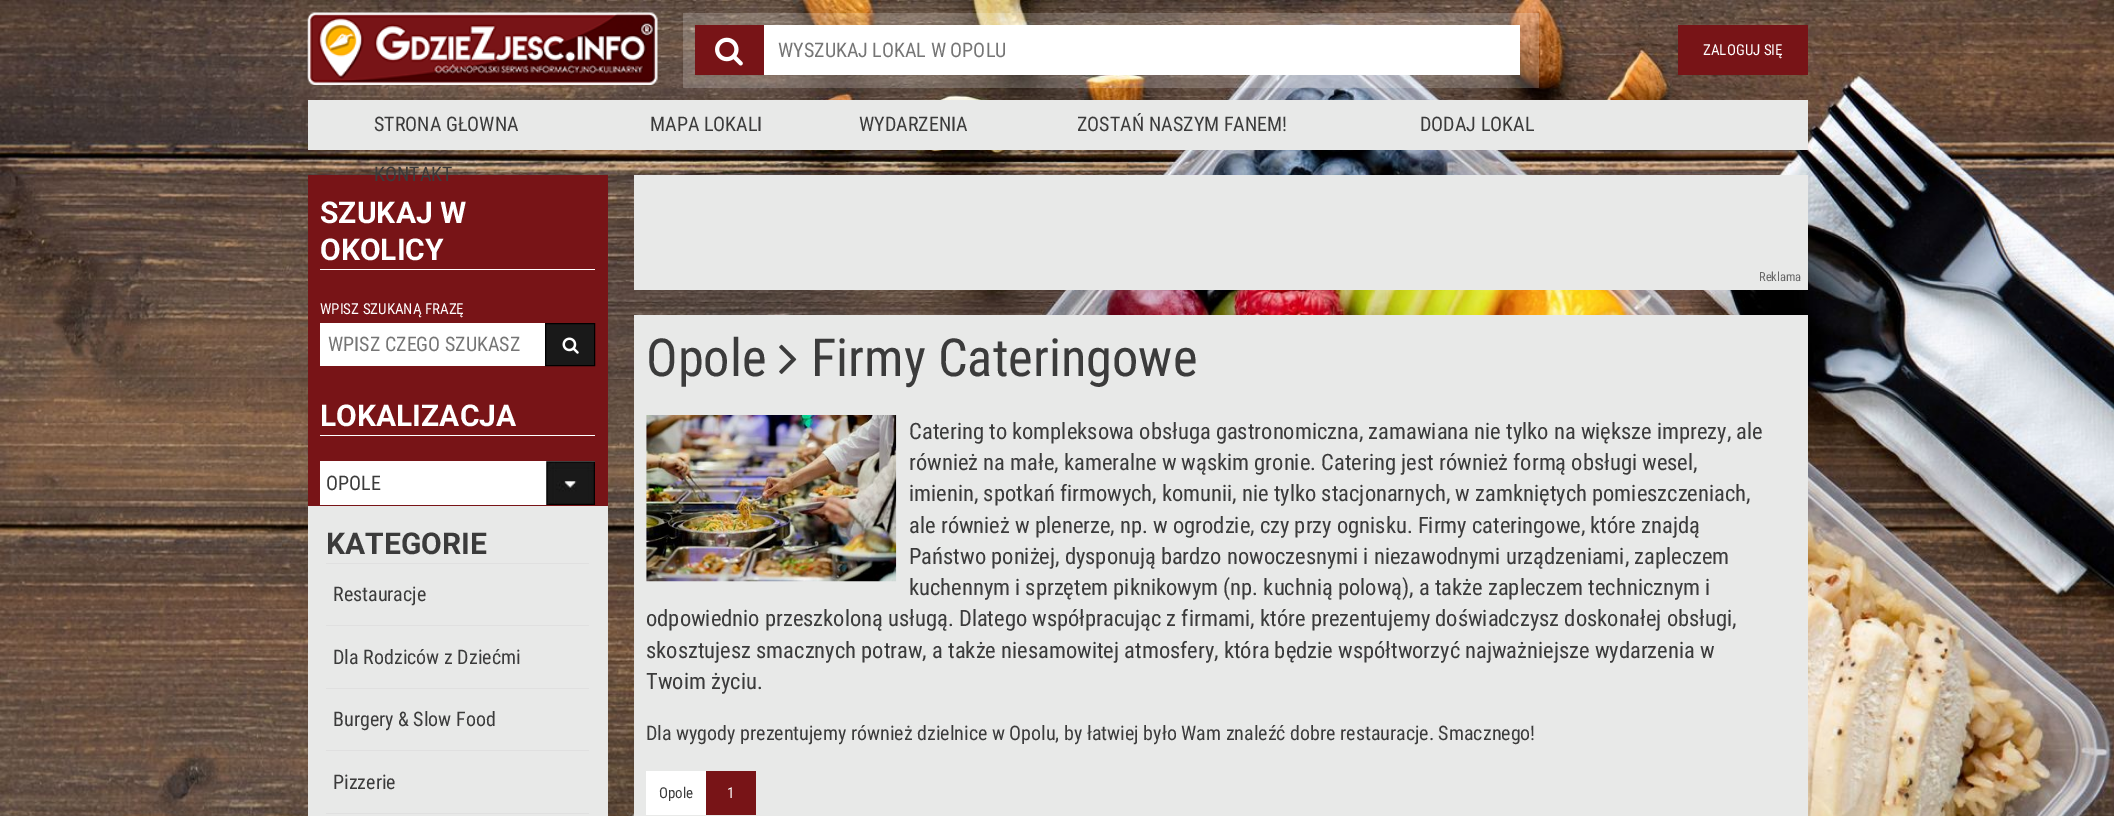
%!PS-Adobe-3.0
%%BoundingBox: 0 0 2114 816
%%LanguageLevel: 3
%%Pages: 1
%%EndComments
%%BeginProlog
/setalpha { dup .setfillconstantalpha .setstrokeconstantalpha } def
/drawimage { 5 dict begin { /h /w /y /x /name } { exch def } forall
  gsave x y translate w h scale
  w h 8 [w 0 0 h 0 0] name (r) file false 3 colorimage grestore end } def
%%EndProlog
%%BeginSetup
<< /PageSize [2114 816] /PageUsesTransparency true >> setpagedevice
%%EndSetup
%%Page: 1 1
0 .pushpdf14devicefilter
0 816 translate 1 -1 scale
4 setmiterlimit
1 setgray
0 0 2114 816 rectfill
(images/1.raw) 0 0 2114 816 drawimage
(images/2.raw) 307 12 351 73 drawimage
0.2 setalpha
683 13 856 75 rectfill
1 setalpha
0.471 0.078 0.09 setrgbcolor
695 25 69 50 rectfill
(images/3.raw) 715 37 28 29 drawimage
1 setgray
764 25 756 50 rectfill
0.471 0.078 0.09 setrgbcolor
1678 25 130 50 rectfill
0.91 0.914 0.91 setrgbcolor
308 100 1500 50 rectfill
308 506 300 310 rectfill
0.471 0.078 0.09 setrgbcolor
308 175 300 331 rectfill
1 setgray
320 269 275 1 rectfill
320 323 225 43 rectfill
0.098 setgray
newpath 545.5 323.5 moveto 594.5 323.5 lineto 594.5 365.5 lineto 545.5 365.5 lineto closepath gsave fill grestore
0 setgray
stroke
(images/4.raw) 562 337 17 17 drawimage
1 setgray
320 435 275 1 rectfill
320 461 275 44 rectfill
(images/5.raw) 546 461 49 44 drawimage
0.878 setgray
326 563 263 1 rectfill
326 625 263 1 rectfill
326 688 263 1 rectfill
326 750 263 1 rectfill
326 813 263 1 rectfill
0.91 0.914 0.91 setrgbcolor
634 175 1174 115 rectfill
634 315 1174 501 rectfill
(images/6.raw) 779 344 18 30 drawimage
(images/7.raw) 646 415 251 167 drawimage
1 setgray
646 771 60 44 rectfill
0.471 0.078 0.09 setrgbcolor
706 771 50 44 rectfill
/RobotoCondensed-Regular [20 0 0 -20 0 0] selectfont
0.459 setgray
778 57 moveto (WYSZUKAJ LOKAL W OPOLU) show
/RobotoCondensed-Regular [15 0 0 -15 0 0] selectfont
1 setgray
1703 55 moveto (ZALOGUJ SIĘ) show
/RobotoCondensed-Regular [20 0 0 -20 0 0] selectfont
0.231 setgray
374 131 moveto (STRONA GŁOWNA) show
650 131 moveto (MAPA LOKALI) show
859 131 moveto (WYDARZENIA) show
1077 131 moveto (ZOSTAŃ NASZYM FANEM!) show
1420 131 moveto (DODAJ LOKAL) show
374 181 moveto (KONTAKT) show
/Roboto-Bold [30 0 0 -30 0 0] selectfont
1 setgray
320 223 moveto (SZUKAJ W) show
320 260 moveto (OKOLICY) show
/RobotoCondensed-Regular [15 0 0 -15 0 0] selectfont
320 314 moveto (WPISZ SZUKANĄ FRAZĘ) show
/RobotoCondensed-Regular [20 0 0 -20 0 0] selectfont
0.459 setgray
328 351 moveto (WPISZ CZEGO SZUKASZ) show
/Roboto-Bold [30 0 0 -30 0 0] selectfont
1 setgray
320 426 moveto (LOKALIZACJA) show
/RobotoCondensed-Regular [20 0 0 -20 0 0] selectfont
0.231 setgray
326 490 moveto (OPOLE) show
/Roboto-Bold [30 0 0 -30 0 0] selectfont
326 554 moveto (KATEGORIE) show
/RobotoCondensed-Regular [20 0 0 -20 0 0] selectfont
333 601 moveto (Restauracje) show
333 664 moveto (Dla Rodziców z Dziećmi) show
333 726 moveto (Burgery & Slow Food) show
333 789 moveto (Pizzerie) show
/RobotoCondensed-Regular [12.5 0 0 -12.5 0 0] selectfont
0.4 setgray
1759 281 moveto (Reklama) show
/RobotoCondensed-Regular [52.5 0 0 -52.5 0 0] selectfont
0.231 setgray
646 376 moveto (Opole) show
811 376 moveto (Firmy Cateringowe) show
/RobotoCondensed-Regular [22.5 0 0 -22.5 0 0] selectfont
909 439 moveto (Catering to kompleksowa obsługa gastronomiczna, zamawiana nie tylko na większe imprezy, ale) show
909 470 moveto (również na małe, kameralne w wąskim gronie. Catering jest również formą obsługi wesel,) show
909 501 moveto (imienin, spotkań firmowych, komunii, nie tylko stacjonarnych, w zamkniętych pomieszczeniach,) show
909 533 moveto (ale również w plenerze, np. w ogrodzie, czy przy ognisku. Firmy cateringowe, które znajdą) show
909 564 moveto (Państwo poniżej, dysponują bardzo nowoczesnymi i niezawodnymi urządzeniami, zapleczem) show
909 595 moveto (kuchennym i sprzętem piknikowym \(np. kuchnią polową\), a także zapleczem technicznym i) show
646 626 moveto (odpowiednio przeszkoloną usługą. Dlatego współpracując z firmami, które prezentujemy doświadczysz doskonałej obsługi,) show
646 658 moveto (skosztujesz smacznych potraw, a także niesamowitej atmosfery, która będzie współtworzyć najważniejsze wydarzenia w) show
646 689 moveto (Twoim życiu.) show
/RobotoCondensed-Regular [20 0 0 -20 0 0] selectfont
646 740 moveto (Dla wygody prezentujemy również dzielnice w Opolu, by łatwiej było Wam znaleźć dobre restauracje. Smacznego!) show
/RobotoCondensed-Regular [15 0 0 -15 0 0] selectfont
659 798 moveto (Opole) show
1 setgray
727 798 moveto (1) show
.poppdf14devicefilter showpage
%%EOF
